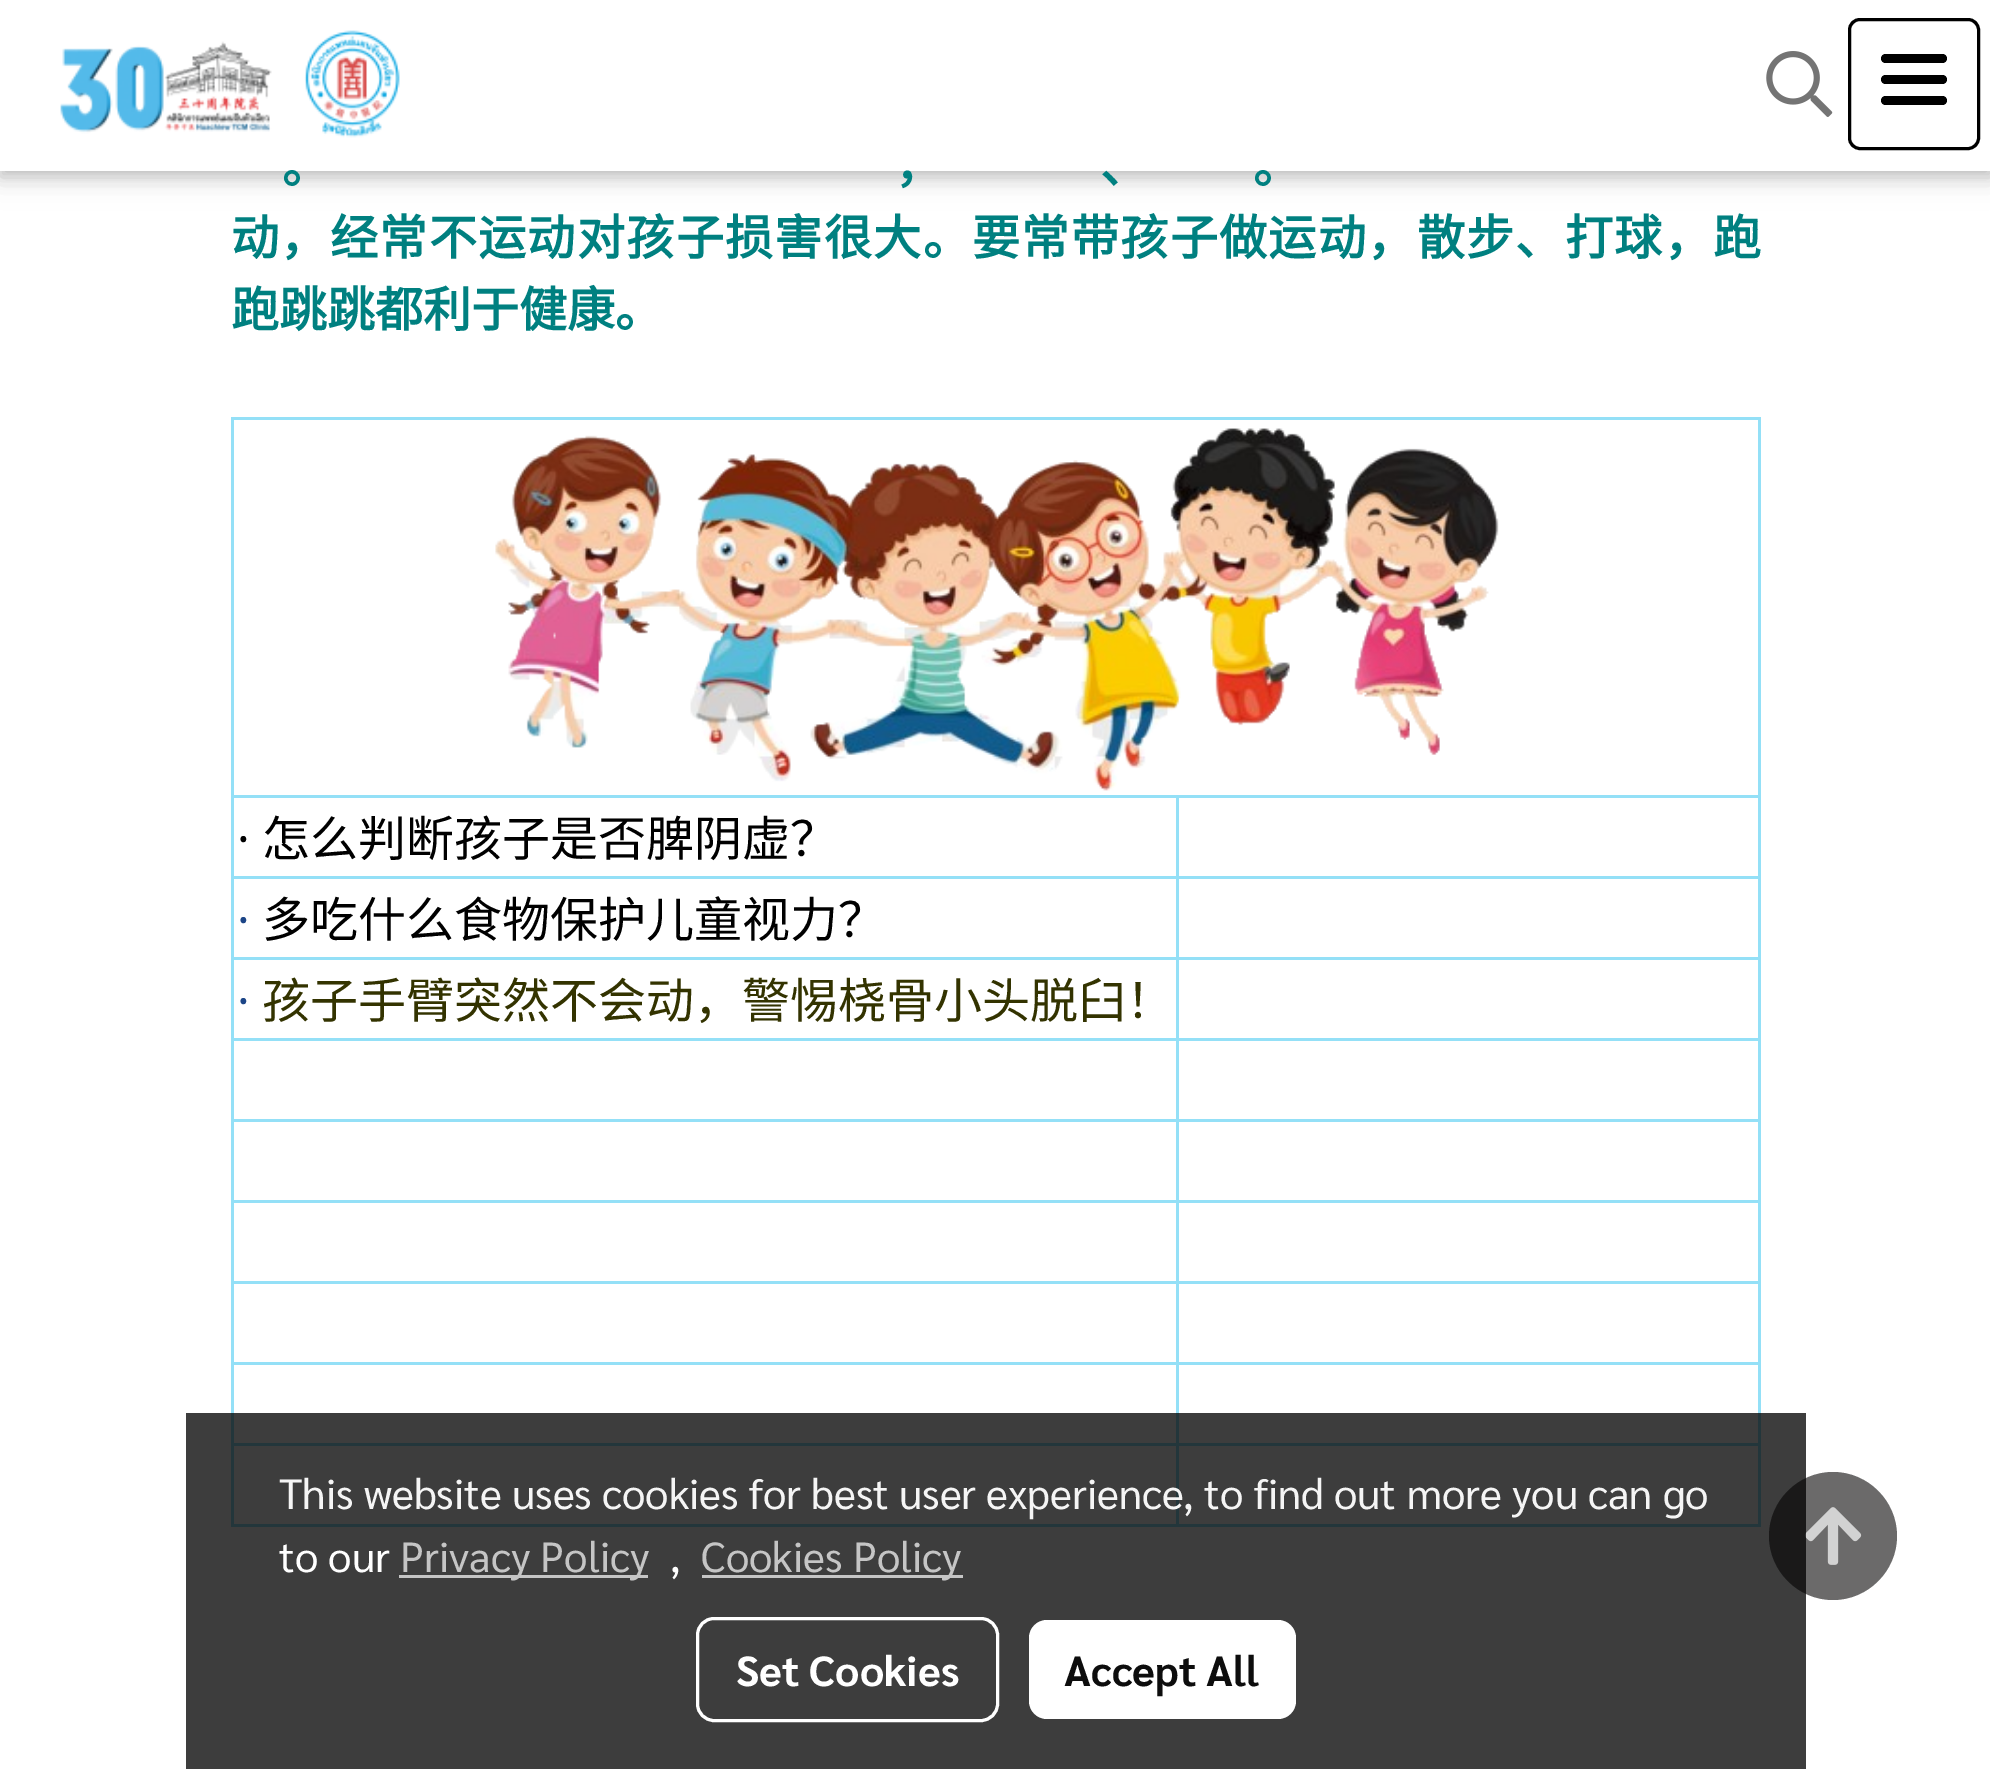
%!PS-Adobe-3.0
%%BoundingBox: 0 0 1990 1769
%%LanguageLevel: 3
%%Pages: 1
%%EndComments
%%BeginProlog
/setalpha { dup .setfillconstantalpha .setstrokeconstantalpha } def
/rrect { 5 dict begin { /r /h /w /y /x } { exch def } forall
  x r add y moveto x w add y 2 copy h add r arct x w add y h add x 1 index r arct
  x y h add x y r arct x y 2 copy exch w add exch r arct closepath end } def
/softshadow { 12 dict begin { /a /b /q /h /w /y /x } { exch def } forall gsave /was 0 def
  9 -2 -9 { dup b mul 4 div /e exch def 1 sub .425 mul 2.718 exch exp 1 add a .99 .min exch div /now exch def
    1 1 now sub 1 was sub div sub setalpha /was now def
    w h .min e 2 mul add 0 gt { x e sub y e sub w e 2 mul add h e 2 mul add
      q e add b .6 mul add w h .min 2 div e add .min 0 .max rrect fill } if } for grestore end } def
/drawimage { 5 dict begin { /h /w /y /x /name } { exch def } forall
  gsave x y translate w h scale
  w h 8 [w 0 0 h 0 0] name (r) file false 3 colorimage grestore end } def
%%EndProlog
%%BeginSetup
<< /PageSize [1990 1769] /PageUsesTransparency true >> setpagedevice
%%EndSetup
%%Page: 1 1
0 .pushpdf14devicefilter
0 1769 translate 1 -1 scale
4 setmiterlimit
1 setgray
0 0 1990 1769 rectfill
0 setgray
0 6 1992 171 0 15 0.12 softshadow
0 6 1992 171 0 7.5 0.16 softshadow
1 setgray
0 0 1990 171 rectfill
(images/1.raw) 60 30 340 108 drawimage
(images/2.raw) 1766 51 67 66 drawimage
0 setgray
3 setlinewidth
1849.5 19.5 129 129 10.5 rrect stroke
1881 75 66 9 4.5 rrect fill
1881 54 66 9 4.5 rrect fill
1881 96 66 9 4.5 rrect fill
0.58 0.878 0.969 setrgbcolor
231 417 1530 3 rectfill
1758 417 3 1110 rectfill
231 1524 1530 3 rectfill
231 417 3 1110 rectfill
(images/3.raw) 495 428 1004 363 drawimage
1176 795 585 3 rectfill
1176 876 585 3 rectfill
1176 957 585 3 rectfill
1176 1038 585 3 rectfill
1176 1119 585 3 rectfill
1176 1200 585 3 rectfill
1176 1281 585 3 rectfill
1176 1362 585 3 rectfill
1176 1443 585 3 rectfill
1176 1443 3 84 rectfill
231 1443 948 3 rectfill
1176 1362 3 84 rectfill
231 1362 948 3 rectfill
1176 1281 3 84 rectfill
231 1281 948 3 rectfill
1176 1200 3 84 rectfill
231 1200 948 3 rectfill
1176 1119 3 84 rectfill
231 1119 948 3 rectfill
1176 1038 3 84 rectfill
231 1038 948 3 rectfill
1176 957 3 84 rectfill
231 957 948 3 rectfill
1176 876 3 84 rectfill
231 876 948 3 rectfill
1176 795 3 84 rectfill
231 795 948 3 rectfill
0.42 0.416 0.416 setrgbcolor
newpath 1833 1472 moveto 1798 1472 1769 1501 1769 1536 curveto 1769 1571 1798 1600 1833 1600 curveto 1868 1600 1897 1571 1897 1536 curveto 1897 1501 1868 1472 1833 1472 curveto closepath fill
(images/4.raw) 1804 1507 58 58 drawimage
0.76 setalpha
0 setgray
186 1413 1620 356 rectfill
1 setalpha
0.773 setgray
399 1575 249 3 rectfill
702 1575 261 3 rectfill
1 setgray
697.5 1618.5 300 102 16.5 rrect stroke
1029 1620 267 99 18 rrect fill
/NotoSansCJKSC-Bold [48 0 0 -48 0 0] selectfont
0 0.502 0.502 setrgbcolor
282 183 moveto 3 0 (。) ashow
895 183 moveto 3 0 (，) ashow
1100 183 moveto 3 0 (、) ashow
1253 183 moveto 3 0 (。) ashow
231 255 moveto 1.4 0 (动，经常不运动对孩子损害很大。要常带孩子做运动，散步、打球，跑) ashow
231 327 moveto (跑跳跳都利于健康。) show
/OpenSans-Regular [48 0 0 -48 0 0] selectfont
0 setgray
237 856 moveto (·) show
/NotoSansCJKSC-Regular [48 0 0 -48 0 0] selectfont
262 856 moveto (怎么判断孩子是否脾阴虚？) show
/OpenSans-Regular [48 0 0 -48 0 0] selectfont
0.11 0.271 0.529 setrgbcolor
237 937 moveto (·) show
/NotoSansCJKSC-Regular [48 0 0 -48 0 0] selectfont
0 setgray
262 937 moveto (多吃什么食物保护儿童视力？) show
/OpenSans-Regular [48 0 0 -48 0 0] selectfont
0.11 0.271 0.529 setrgbcolor
237 1018 moveto (·) show
/NotoSansCJKSC-Regular [48 0 0 -48 0 0] selectfont
0.2 0.2 0 setrgbcolor
262 1018 moveto (孩子手臂突然不会动，警惕桡骨小头脱臼！) show
/Sarabun-Regular [42 0 0 -42 0 0] selectfont
0.961 setgray
279 1509 moveto (This website uses cookies for best user experience, to find out more you can go) show
1 setgray
279 1572 moveto (to our) show
0.773 setgray
400 1572 moveto (Privacy Policy) show
1 setgray
670 1572 moveto (,) show
0.773 setgray
701 1572 moveto (Cookies Policy) show
/Sarabun-Bold [42 0 0 -42 0 0] selectfont
1 setgray
736 1686 moveto (Set Cookies) show
0.051 setgray
1064 1686 moveto (Accept All) show
.poppdf14devicefilter showpage
%%EOF
